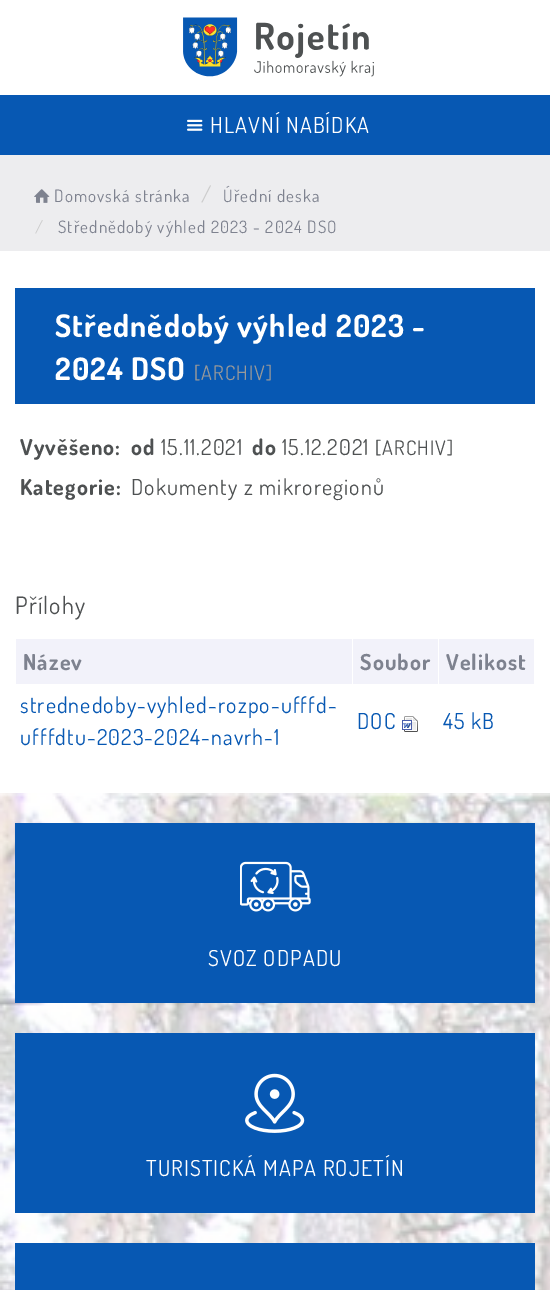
%!PS-Adobe-3.0
%%BoundingBox: 0 0 550 1290
%%LanguageLevel: 3
%%Pages: 1
%%EndComments
%%BeginProlog
/drawimage { 5 dict begin { /h /w /y /x /name } { exch def } forall
  gsave x y translate w h scale
  w h 8 [w 0 0 h 0 0] name (r) file false 3 colorimage grestore end } def
%%EndProlog
%%BeginSetup
<< /PageSize [550 1290] >> setpagedevice
%%EndSetup
%%Page: 1 1
0 1290 translate 1 -1 scale
4 setmiterlimit
1 setgray
0 0 550 1290 rectfill
(images/1.raw) 183 17 191 60 drawimage
0.027 0.345 0.702 setrgbcolor
0 95 550 60 rectfill
(images/2.raw) 187 119 16 12 drawimage
0.929 0.929 0.937 setrgbcolor
0 155 550 96 rectfill
(images/3.raw) 34 189 16 14 drawimage
0.027 0.345 0.702 setrgbcolor
15 288 520 116 rectfill
0.949 0.949 0.98 setrgbcolor
16 639 336 45 rectfill
353 639 85 45 rectfill
439 639 95 45 rectfill
(images/4.raw) 402 716 16 16 drawimage
(images/5.raw) 0 793 550 497 drawimage
0.027 0.345 0.702 setrgbcolor
15 823 520 180 rectfill
(images/6.raw) 240 861 71 51 drawimage
15 1033 520 180 rectfill
(images/7.raw) 245 1073 60 60 drawimage
15 1243 520 47 rectfill
/Dosis-Regular [22 0 0 -22 0 0] selectfont
1 setgray
210 133 moveto 1.1 0 (HLAVNÍ NABÍDKA) ashow
/Dosis-Regular [17 0 0 -17 0 0] selectfont
0.494 0.51 0.561 setrgbcolor
54 202 moveto 1.1 0 (Domovská stránka) ashow
/Dosis-Regular [22 0 0 -22 0 0] selectfont
0.8 setgray
201 202 moveto 1.1 0 (/) ashow
/Dosis-Regular [17 0 0 -17 0 0] selectfont
0.494 0.51 0.561 setrgbcolor
223 202 moveto 1.1 0 (Úřední deska) ashow
0.8 setgray
35 233 moveto 1.1 0 (/) ashow
0.494 0.51 0.561 setrgbcolor
58 233 moveto 1.1 0 (Střednědobý výhled 2023 - 2024 DSO) ashow
/Dosis-Bold [31 0 0 -31 0 0] selectfont
1 setgray
55 337 moveto 1.1 0 (Střednědobý výhled 2023 -) ashow
55 380 moveto 1.1 0 (2024 DSO) ashow
/Dosis-Regular [20 0 0 -20 0 0] selectfont
0.6 setgray
194 380 moveto 1.1 0 ([ARCHIV]) ashow
/Dosis-Bold [22 0 0 -22 0 0] selectfont
0.306 0.318 0.322 setrgbcolor
20 455 moveto 1.1 0 (Vyvěšeno:) ashow
131 455 moveto 1.1 0 (od) ashow
/Dosis-Regular [22 0 0 -22 0 0] selectfont
161 455 moveto 1.1 0 (15.11.2021) ashow
/Dosis-Bold [22 0 0 -22 0 0] selectfont
252 455 moveto 1.1 0 (do) ashow
/Dosis-Regular [22 0 0 -22 0 0] selectfont
282 455 moveto 1.1 0 (15.12.2021) ashow
/Dosis-Regular [20 0 0 -20 0 0] selectfont
375 455 moveto 1.1 0 ([ARCHIV]) ashow
/Dosis-Bold [22 0 0 -22 0 0] selectfont
20 495 moveto 1.1 0 (Kategorie:) ashow
/Dosis-Regular [22 0 0 -22 0 0] selectfont
131 495 moveto 1.1 0 (Dokumenty z mikroregionů) ashow
/Dosis-Regular [24 0 0 -24 0 0] selectfont
15 614 moveto 1.1 0 (Přílohy) ashow
/Dosis-Bold [22 0 0 -22 0 0] selectfont
0.494 0.51 0.561 setrgbcolor
23 670 moveto 1.1 0 (Název) ashow
360 670 moveto 1.1 0 (Soubor) ashow
446 670 moveto 1.1 0 (Velikost) ashow
/Dosis-Regular [22 0 0 -22 0 0] selectfont
0.027 0.345 0.702 setrgbcolor
20 713 moveto 1.1 0 (strednedoby-vyhled-rozpo-ufffd-) ashow
20 745 moveto 1.1 0 (ufffdtu-2023-2024-navrh-1) ashow
357 729 moveto 1.1 0 (DOC) ashow
443 729 moveto 1.1 0 (45 kB) ashow
1 setgray
208 966 moveto 1.1 0 (SVOZ ODPADU) ashow
146 1176 moveto 1.1 0 (TURISTICKÁ MAPA ROJETÍN) ashow
showpage
%%EOF
